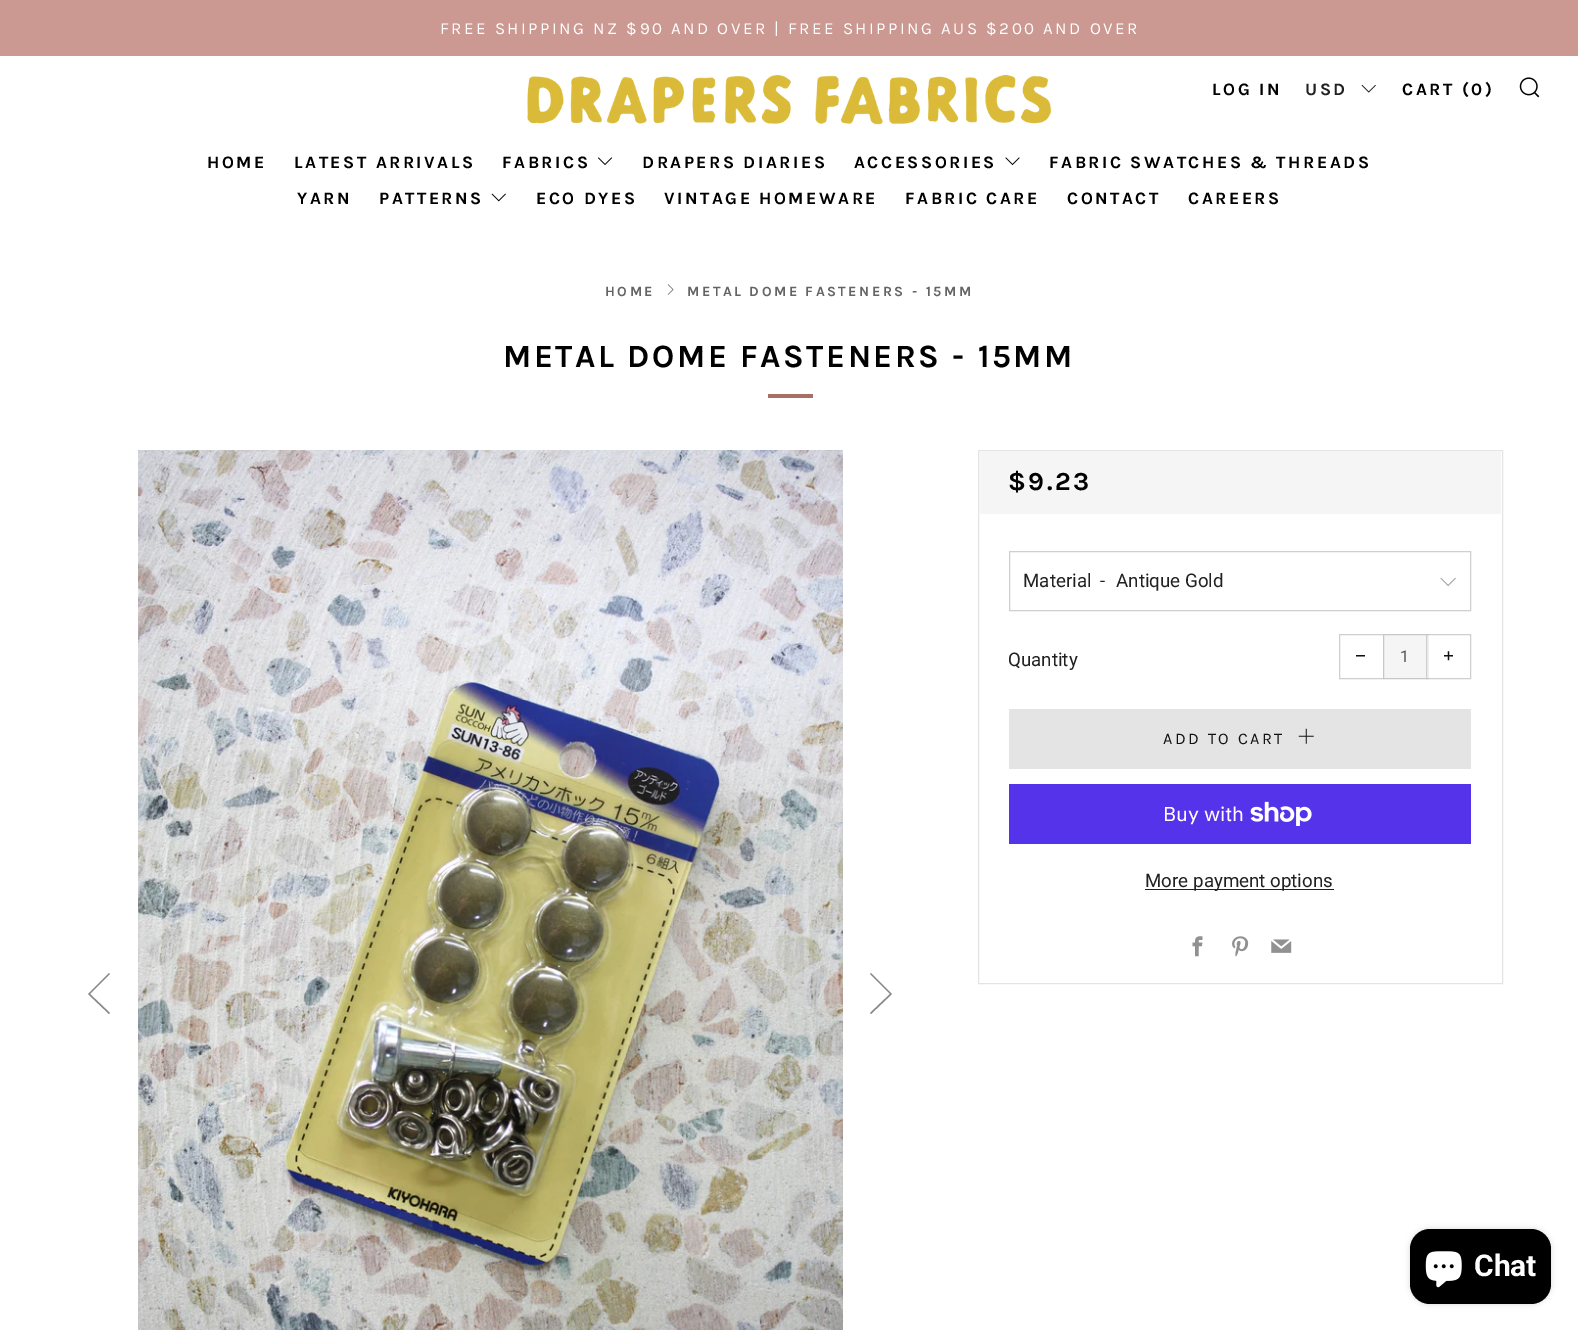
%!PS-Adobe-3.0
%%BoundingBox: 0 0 1578 1330
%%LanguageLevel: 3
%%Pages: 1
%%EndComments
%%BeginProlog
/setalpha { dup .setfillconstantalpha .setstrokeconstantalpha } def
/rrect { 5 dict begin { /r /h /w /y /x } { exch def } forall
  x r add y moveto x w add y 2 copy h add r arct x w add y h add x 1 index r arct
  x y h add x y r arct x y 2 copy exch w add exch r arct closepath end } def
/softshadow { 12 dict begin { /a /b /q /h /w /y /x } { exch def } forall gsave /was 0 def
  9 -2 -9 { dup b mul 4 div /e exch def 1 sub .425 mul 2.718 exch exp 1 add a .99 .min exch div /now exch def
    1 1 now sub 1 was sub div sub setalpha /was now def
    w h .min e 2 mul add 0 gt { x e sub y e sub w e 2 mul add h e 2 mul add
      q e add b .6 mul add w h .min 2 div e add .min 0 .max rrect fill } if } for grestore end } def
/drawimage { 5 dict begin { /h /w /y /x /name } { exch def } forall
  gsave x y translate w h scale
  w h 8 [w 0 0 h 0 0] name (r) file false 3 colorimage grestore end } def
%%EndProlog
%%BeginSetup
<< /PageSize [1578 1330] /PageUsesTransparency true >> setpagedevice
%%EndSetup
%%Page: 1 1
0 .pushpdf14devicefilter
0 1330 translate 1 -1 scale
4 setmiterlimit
1 setgray
0 0 1578 1330 rectfill
0.796 0.596 0.573 setrgbcolor
0 0 1578 56 rectfill
(images/1.raw) 527 75 525 50 drawimage
(images/2.raw) 1361 84 15 9 drawimage
(images/3.raw) 1519 77 21 21 drawimage
(images/4.raw) 597 157 16 8 drawimage
(images/5.raw) 1005 157 15 9 drawimage
(images/6.raw) 491 193 15 9 drawimage
(images/7.raw) 667 284 7 11 drawimage
0.671 0.431 0.404 setrgbcolor
768 394 45 4 rectfill
0.533 setgray
newpath 110 974 moveto 109 973 lineto 88 994 lineto 109 1014 lineto 110 1013 lineto 90 994 lineto closepath fill
(images/8.raw) 138 450 705 880 drawimage
newpath 870 1013 moveto 871 1014 lineto 892 994 lineto 871 973 lineto 870 974 lineto 890 994 lineto closepath fill
0.894 setgray
978.5 450.5 524 533 rectstroke
0.961 setgray
979 451 522 63 rectfill
0.812 setgray
1009.5 551.5 461 59 rectstroke
(images/9.raw) 1440 577 16 10 drawimage
1339.5 634.5 44 44 rectstroke
0.961 setgray
newpath 1383.5 634.5 moveto 1427.5 634.5 lineto 1427.5 678.5 lineto 1383.5 678.5 lineto closepath gsave fill grestore
0.78 setgray
stroke
0.8 setalpha
1 setgray
1426 634 2 45 rectfill
0.2 setalpha
0.067 setgray
1426.5 634.5 44 44 rectstroke
1 setalpha
0.894 setgray
1009 709 462 60 rectfill
(images/10.raw) 1298 728 16 16 drawimage
0.329 0.2 0.922 setrgbcolor
1009 784 462 60 rectfill
(images/11.raw) 1250 801 62 25 drawimage
0.129 setgray
1145 889 189 1 rectfill
(images/12.raw) 1192 936 11 21 drawimage
(images/13.raw) 1232 936 17 21 drawimage
(images/14.raw) 1271 939 21 14 drawimage
0 setgray
1410 1229 141 75 20 3 0.15 softshadow
1410 1229 141 75 20 rrect fill
(images/15.raw) 1425 1251 37 37 drawimage
/Karla-Regular [16.9 0 0 -16.9 0 0] selectfont
1 setgray
440 34 moveto 2.5 0 (FREE SHIPPING NZ $90 AND OVER | FREE SHIPPING AUS $200 AND OVER) ashow
/Karla-Bold [17.5 0 0 -17.5 0 0] selectfont
0 setgray
1212 95 moveto 2.5 0 (LOG IN) ashow
0.129 setgray
1305 95 moveto 2.5 0 (USD) ashow
0 setgray
1402 95 moveto 2.5 0 (CART \(0\)) ashow
207 168 moveto 2.5 0 (HOME) ashow
294 168 moveto 2.5 0 (LATEST ARRIVALS) ashow
502 168 moveto 2.5 0 (FABRICS) ashow
642 168 moveto 2.5 0 (DRAPERS DIARIES) ashow
854 168 moveto 2.5 0 (ACCESSORIES) ashow
1049 168 moveto 2.5 0 (FABRIC SWATCHES & THREADS) ashow
297 204 moveto 2.5 0 (YARN) ashow
379 204 moveto 2.5 0 (PATTERNS) ashow
536 204 moveto 2.5 0 (ECO DYES) ashow
664 204 moveto 2.5 0 (VINTAGE HOMEWARE) ashow
905 204 moveto 2.5 0 (FABRIC CARE) ashow
1067 204 moveto 2.5 0 (CONTACT) ashow
1188 204 moveto 2.5 0 (CAREERS) ashow
/Karla-Bold [14.1 0 0 -14.1 0 0] selectfont
0.392 setgray
605 296 moveto 2.5 0 (HOME) ashow
687 296 moveto 2.5 0 (METAL DOME FASTENERS - 15MM) ashow
/Karla-Bold [32.5 0 0 -32.5 0 0] selectfont
0 setgray
503 367 moveto 2.5 0 (METAL DOME FASTENERS - 15MM) ashow
/Karla-Bold [26 0 0 -26 0 0] selectfont
1008 490 moveto 2.5 0 ($9.23) ashow
/Roboto-Regular [18.75 0 0 -18.75 0 0] selectfont
0.129 setgray
1023 587 moveto (Material) show
1100 587 moveto (-) show
1116 587 moveto (Antique Gold) show
1008 666 moveto (Quantity) show
/LiberationSans-Regular [18.75 0 0 -18.75 0 0] selectfont
0.067 setgray
1355 662 moveto (−) show
/Roboto-Regular [16.25 0 0 -16.25 0 0] selectfont
0.333 setgray
1400 662 moveto (1) show
/LiberationSans-Regular [18.75 0 0 -18.75 0 0] selectfont
0.067 setgray
1443 662 moveto (+) show
/Karla-Regular [16.25 0 0 -16.25 0 0] selectfont
1163 744 moveto 2.5 0 (ADD TO CART) ashow
/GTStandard-Regular [20 0 0 -20 0 0] selectfont
1 setgray
1163 821 moveto (Buy with) show
/Roboto-Regular [18.75 0 0 -18.75 0 0] selectfont
0.129 setgray
1145 887 moveto (More payment options) show
/Roboto-Bold [30 0 0 -30 0 0] selectfont
1 setgray
1474 1276 moveto (Chat) show
.poppdf14devicefilter showpage
%%EOF
